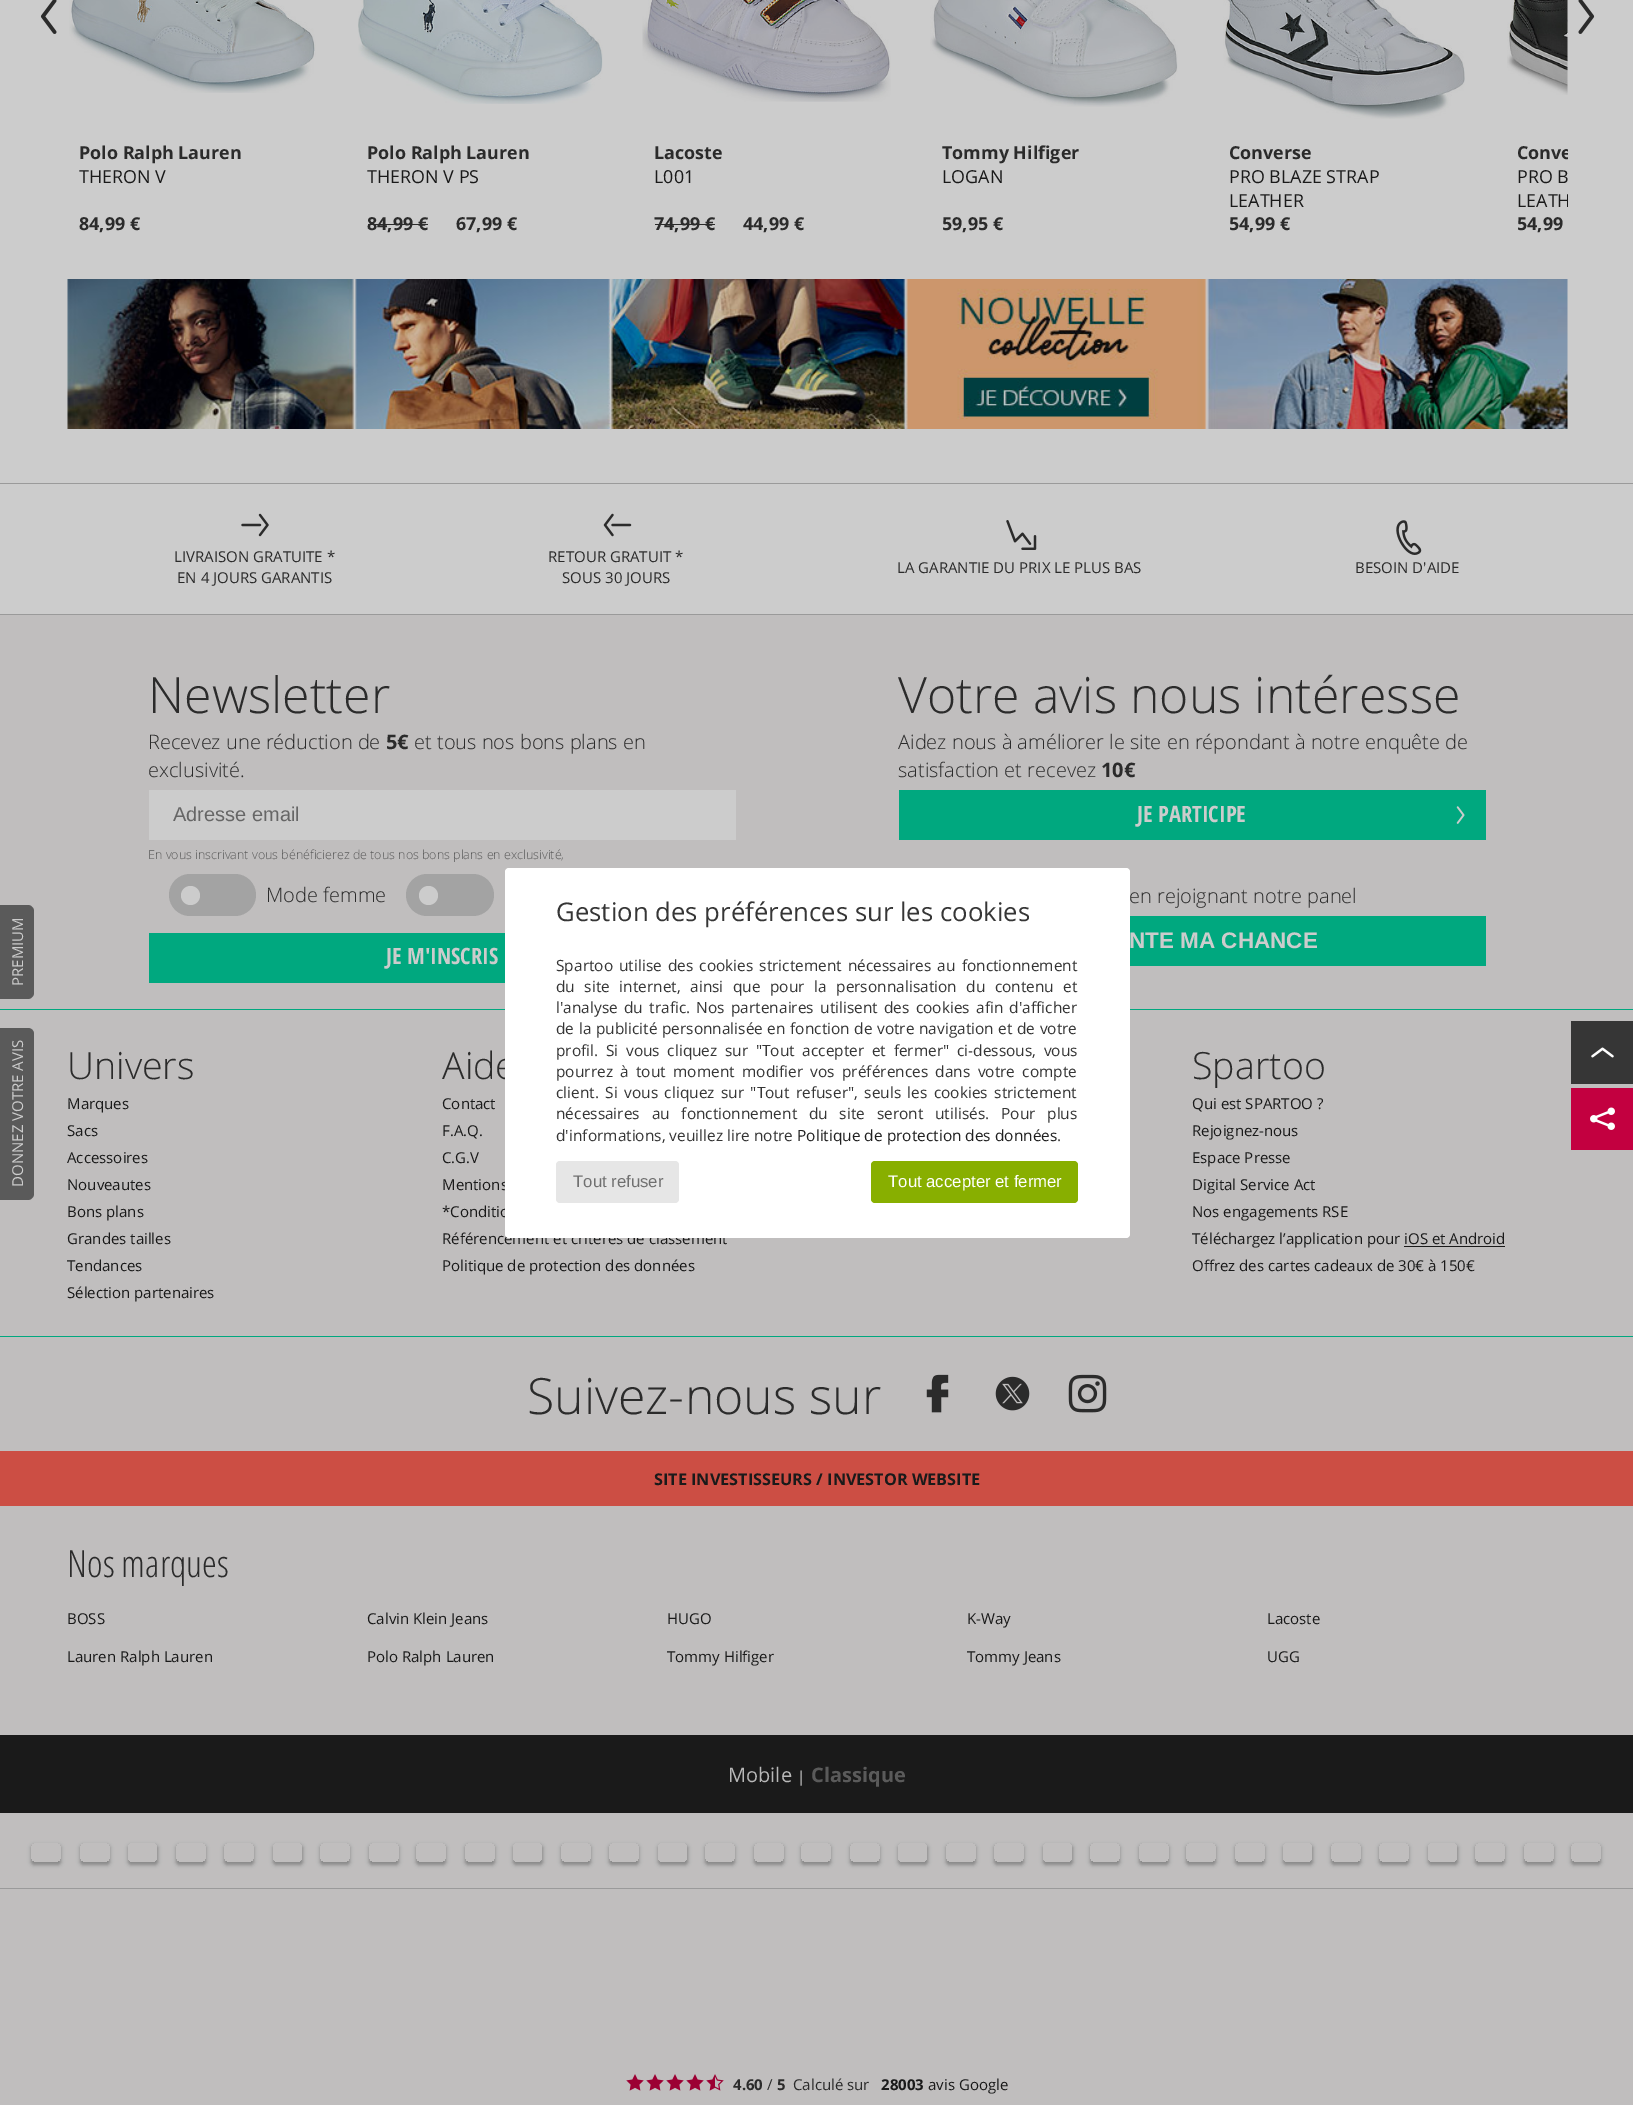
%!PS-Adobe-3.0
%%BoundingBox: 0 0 1633 2105
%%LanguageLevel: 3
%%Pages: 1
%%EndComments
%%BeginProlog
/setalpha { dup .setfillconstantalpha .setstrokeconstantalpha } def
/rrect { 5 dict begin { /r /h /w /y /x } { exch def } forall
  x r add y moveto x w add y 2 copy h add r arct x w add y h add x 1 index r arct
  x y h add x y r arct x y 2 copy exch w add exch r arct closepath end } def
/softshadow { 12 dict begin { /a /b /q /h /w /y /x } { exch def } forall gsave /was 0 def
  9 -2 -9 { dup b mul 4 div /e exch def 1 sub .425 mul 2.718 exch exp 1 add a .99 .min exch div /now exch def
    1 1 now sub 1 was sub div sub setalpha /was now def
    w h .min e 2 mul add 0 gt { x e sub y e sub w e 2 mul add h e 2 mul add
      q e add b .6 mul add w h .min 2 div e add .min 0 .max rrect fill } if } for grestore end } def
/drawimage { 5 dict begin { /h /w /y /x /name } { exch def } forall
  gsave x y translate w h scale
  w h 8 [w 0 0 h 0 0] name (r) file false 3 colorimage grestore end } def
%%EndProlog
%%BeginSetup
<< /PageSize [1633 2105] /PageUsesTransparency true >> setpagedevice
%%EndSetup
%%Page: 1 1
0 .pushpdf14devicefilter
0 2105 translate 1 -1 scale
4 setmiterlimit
0.8 setgray
0 0 1633 2105 rectfill
(images/1.raw) 40 0 17 34 drawimage
(images/2.raw) 1578 0 17 34 drawimage
(images/3.raw) 69 0 247 93 drawimage
(images/4.raw) 358 0 245 104 drawimage
0.169 setgray
368 224 60 1 rectfill
(images/5.raw) 642 0 249 102 drawimage
655 224 60 1 rectfill
(images/6.raw) 930 0 248 107 drawimage
(images/7.raw) 1223 0 242 119 drawimage
(images/8.raw) 1507 0 61 95 drawimage
(images/9.raw) 67 279 1501 150 drawimage
0.753 0.745 0.745 setrgbcolor
0 615 1633 1490 rectfill
0.604 setgray
0 483 1633 1 rectfill
0 614 1633 1 rectfill
(images/10.raw) 241 513 28 24 drawimage
(images/11.raw) 603 513 29 24 drawimage
(images/12.raw) 1006 520 31 30 drawimage
(images/13.raw) 1396 520 26 35 drawimage
0.8 setgray
149 790 587 50 rectfill
0.639 setgray
169 874 87 42 21 rrect fill
0.8 setgray
newpath 190.5 895.5 9.5 0 360 arc closepath fill
0.639 setgray
406 874 88 42 21 rrect fill
0.8 setgray
newpath 428.5 895.5 9.5 0 360 arc closepath fill
0 0.659 0.498 setrgbcolor
149 933 356 50 rectfill
899 790 587 50 rectfill
(images/14.raw) 1456 806 9 18 drawimage
1130 916 356 50 rectfill
0 1009 1633 1 rectfill
0.102 setgray
1404 1246 101 1 rectfill
0 0.659 0.498 setrgbcolor
0 1336 1633 1 rectfill
(images/15.raw) 926 1374 23 39 drawimage
(images/16.raw) 995 1376 35 35 drawimage
(images/17.raw) 1068 1374 39 39 drawimage
0.8 0.306 0.267 setrgbcolor
0 1451 1633 55 rectfill
0.102 setgray
0 1735 1633 78 rectfill
0.604 setgray
0 1888 1633 1 rectfill
gsave
newpath 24 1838 moveto 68 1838 lineto 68 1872 lineto 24 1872 lineto closepath 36 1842.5 moveto 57 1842.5 lineto 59 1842.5 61 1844 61 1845.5 curveto 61 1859.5 lineto 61 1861 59 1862.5 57 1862.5 curveto 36 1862.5 lineto 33.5 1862.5 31 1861 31 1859.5 curveto 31 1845.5 lineto 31 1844 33.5 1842.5 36 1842.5 curveto closepath eoclip newpath
0 setgray
31 1845 30 20 3 2 0.3 softshadow
grestore
gsave
newpath 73 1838 moveto 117 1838 lineto 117 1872 lineto 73 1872 lineto closepath 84.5 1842.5 moveto 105.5 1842.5 lineto 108 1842.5 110 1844 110 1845.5 curveto 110 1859.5 lineto 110 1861 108 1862.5 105.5 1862.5 curveto 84.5 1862.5 lineto 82 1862.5 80 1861 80 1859.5 curveto 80 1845.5 lineto 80 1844 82 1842.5 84.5 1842.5 curveto closepath eoclip newpath
0 setgray
80 1845 30 20 3 2 0.3 softshadow
grestore
gsave
newpath 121 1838 moveto 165 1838 lineto 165 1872 lineto 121 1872 lineto closepath 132 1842.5 moveto 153 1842.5 lineto 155.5 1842.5 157.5 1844 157.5 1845.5 curveto 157.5 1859.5 lineto 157.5 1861 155.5 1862.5 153 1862.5 curveto 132 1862.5 lineto 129.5 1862.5 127.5 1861 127.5 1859.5 curveto 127.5 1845.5 lineto 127.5 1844 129.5 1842.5 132 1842.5 curveto closepath eoclip newpath
0 setgray
128 1845 30 20 3 2 0.3 softshadow
grestore
gsave
newpath 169 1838 moveto 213 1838 lineto 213 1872 lineto 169 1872 lineto closepath 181 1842.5 moveto 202 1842.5 lineto 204 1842.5 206 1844 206 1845.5 curveto 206 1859.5 lineto 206 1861 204 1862.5 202 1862.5 curveto 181 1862.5 lineto 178.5 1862.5 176 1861 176 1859.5 curveto 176 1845.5 lineto 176 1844 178.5 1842.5 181 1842.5 curveto closepath eoclip newpath
0 setgray
176 1845 30 20 3 2 0.3 softshadow
grestore
gsave
newpath 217 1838 moveto 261 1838 lineto 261 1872 lineto 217 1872 lineto closepath 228 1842.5 moveto 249 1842.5 lineto 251.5 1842.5 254 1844 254 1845.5 curveto 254 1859.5 lineto 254 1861 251.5 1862.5 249 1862.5 curveto 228 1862.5 lineto 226 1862.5 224 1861 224 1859.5 curveto 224 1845.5 lineto 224 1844 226 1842.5 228 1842.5 curveto closepath eoclip newpath
0 setgray
224 1845 30 20 3 2 0.3 softshadow
grestore
gsave
newpath 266 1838 moveto 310 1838 lineto 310 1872 lineto 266 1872 lineto closepath 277 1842.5 moveto 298 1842.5 lineto 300.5 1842.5 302.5 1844 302.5 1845.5 curveto 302.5 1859.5 lineto 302.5 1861 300.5 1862.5 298 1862.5 curveto 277 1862.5 lineto 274.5 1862.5 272.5 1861 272.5 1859.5 curveto 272.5 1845.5 lineto 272.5 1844 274.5 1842.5 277 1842.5 curveto closepath eoclip newpath
0 setgray
273 1845 30 20 3 2 0.3 softshadow
grestore
gsave
newpath 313 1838 moveto 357 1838 lineto 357 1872 lineto 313 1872 lineto closepath 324.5 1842.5 moveto 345.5 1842.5 lineto 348 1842.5 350 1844 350 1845.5 curveto 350 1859.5 lineto 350 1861 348 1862.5 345.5 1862.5 curveto 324.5 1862.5 lineto 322 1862.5 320 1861 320 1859.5 curveto 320 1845.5 lineto 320 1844 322 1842.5 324.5 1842.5 curveto closepath eoclip newpath
0 setgray
320 1845 30 20 3 2 0.3 softshadow
grestore
gsave
newpath 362 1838 moveto 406 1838 lineto 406 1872 lineto 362 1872 lineto closepath 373 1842.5 moveto 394 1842.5 lineto 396.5 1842.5 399 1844 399 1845.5 curveto 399 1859.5 lineto 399 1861 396.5 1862.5 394 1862.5 curveto 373 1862.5 lineto 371 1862.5 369 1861 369 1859.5 curveto 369 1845.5 lineto 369 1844 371 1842.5 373 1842.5 curveto closepath eoclip newpath
0 setgray
369 1845 30 20 3 2 0.3 softshadow
grestore
gsave
newpath 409 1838 moveto 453 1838 lineto 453 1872 lineto 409 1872 lineto closepath 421 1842.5 moveto 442 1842.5 lineto 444 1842.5 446 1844 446 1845.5 curveto 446 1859.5 lineto 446 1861 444 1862.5 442 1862.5 curveto 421 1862.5 lineto 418.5 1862.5 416 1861 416 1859.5 curveto 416 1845.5 lineto 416 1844 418.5 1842.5 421 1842.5 curveto closepath eoclip newpath
0 setgray
416 1845 30 20 3 2 0.3 softshadow
grestore
gsave
newpath 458 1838 moveto 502 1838 lineto 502 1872 lineto 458 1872 lineto closepath 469.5 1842.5 moveto 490.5 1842.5 lineto 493 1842.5 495 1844 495 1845.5 curveto 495 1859.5 lineto 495 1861 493 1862.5 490.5 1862.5 curveto 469.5 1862.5 lineto 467 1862.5 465 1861 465 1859.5 curveto 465 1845.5 lineto 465 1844 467 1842.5 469.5 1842.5 curveto closepath eoclip newpath
0 setgray
465 1845 30 20 3 2 0.3 softshadow
grestore
gsave
newpath 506 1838 moveto 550 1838 lineto 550 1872 lineto 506 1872 lineto closepath 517 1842.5 moveto 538 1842.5 lineto 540.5 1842.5 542.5 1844 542.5 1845.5 curveto 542.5 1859.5 lineto 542.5 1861 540.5 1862.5 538 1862.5 curveto 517 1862.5 lineto 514.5 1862.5 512.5 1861 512.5 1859.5 curveto 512.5 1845.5 lineto 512.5 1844 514.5 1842.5 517 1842.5 curveto closepath eoclip newpath
0 setgray
513 1845 30 20 3 2 0.3 softshadow
grestore
gsave
newpath 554 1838 moveto 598 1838 lineto 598 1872 lineto 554 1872 lineto closepath 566 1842.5 moveto 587 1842.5 lineto 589 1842.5 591 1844 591 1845.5 curveto 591 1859.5 lineto 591 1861 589 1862.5 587 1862.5 curveto 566 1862.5 lineto 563.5 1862.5 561 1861 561 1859.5 curveto 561 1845.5 lineto 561 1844 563.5 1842.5 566 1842.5 curveto closepath eoclip newpath
0 setgray
561 1845 30 20 3 2 0.3 softshadow
grestore
gsave
newpath 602 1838 moveto 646 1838 lineto 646 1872 lineto 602 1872 lineto closepath 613 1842.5 moveto 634 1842.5 lineto 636.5 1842.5 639 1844 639 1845.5 curveto 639 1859.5 lineto 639 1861 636.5 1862.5 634 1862.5 curveto 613 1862.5 lineto 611 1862.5 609 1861 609 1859.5 curveto 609 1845.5 lineto 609 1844 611 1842.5 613 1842.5 curveto closepath eoclip newpath
0 setgray
609 1845 30 20 3 2 0.3 softshadow
grestore
gsave
newpath 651 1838 moveto 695 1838 lineto 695 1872 lineto 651 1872 lineto closepath 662 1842.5 moveto 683 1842.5 lineto 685.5 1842.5 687.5 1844 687.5 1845.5 curveto 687.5 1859.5 lineto 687.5 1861 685.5 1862.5 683 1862.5 curveto 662 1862.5 lineto 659.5 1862.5 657.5 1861 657.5 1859.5 curveto 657.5 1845.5 lineto 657.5 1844 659.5 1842.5 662 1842.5 curveto closepath eoclip newpath
0 setgray
658 1845 30 20 3 2 0.3 softshadow
grestore
gsave
newpath 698 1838 moveto 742 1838 lineto 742 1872 lineto 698 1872 lineto closepath 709.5 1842.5 moveto 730.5 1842.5 lineto 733 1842.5 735 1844 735 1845.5 curveto 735 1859.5 lineto 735 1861 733 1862.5 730.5 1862.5 curveto 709.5 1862.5 lineto 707 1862.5 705 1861 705 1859.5 curveto 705 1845.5 lineto 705 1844 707 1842.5 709.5 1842.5 curveto closepath eoclip newpath
0 setgray
705 1845 30 20 3 2 0.3 softshadow
grestore
gsave
newpath 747 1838 moveto 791 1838 lineto 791 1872 lineto 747 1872 lineto closepath 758 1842.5 moveto 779 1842.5 lineto 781.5 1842.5 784 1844 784 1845.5 curveto 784 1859.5 lineto 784 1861 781.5 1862.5 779 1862.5 curveto 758 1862.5 lineto 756 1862.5 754 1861 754 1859.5 curveto 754 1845.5 lineto 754 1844 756 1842.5 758 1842.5 curveto closepath eoclip newpath
0 setgray
754 1845 30 20 3 2 0.3 softshadow
grestore
gsave
newpath 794 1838 moveto 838 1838 lineto 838 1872 lineto 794 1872 lineto closepath 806 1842.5 moveto 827 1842.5 lineto 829 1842.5 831 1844 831 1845.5 curveto 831 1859.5 lineto 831 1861 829 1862.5 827 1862.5 curveto 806 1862.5 lineto 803.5 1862.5 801 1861 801 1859.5 curveto 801 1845.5 lineto 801 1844 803.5 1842.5 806 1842.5 curveto closepath eoclip newpath
0 setgray
801 1845 30 20 3 2 0.3 softshadow
grestore
gsave
newpath 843 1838 moveto 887 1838 lineto 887 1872 lineto 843 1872 lineto closepath 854.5 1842.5 moveto 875.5 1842.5 lineto 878 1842.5 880 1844 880 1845.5 curveto 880 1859.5 lineto 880 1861 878 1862.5 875.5 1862.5 curveto 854.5 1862.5 lineto 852 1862.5 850 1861 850 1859.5 curveto 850 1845.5 lineto 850 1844 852 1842.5 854.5 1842.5 curveto closepath eoclip newpath
0 setgray
850 1845 30 20 3 2 0.3 softshadow
grestore
gsave
newpath 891 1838 moveto 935 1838 lineto 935 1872 lineto 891 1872 lineto closepath 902 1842.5 moveto 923 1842.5 lineto 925.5 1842.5 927.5 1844 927.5 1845.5 curveto 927.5 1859.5 lineto 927.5 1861 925.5 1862.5 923 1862.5 curveto 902 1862.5 lineto 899.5 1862.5 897.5 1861 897.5 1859.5 curveto 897.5 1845.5 lineto 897.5 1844 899.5 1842.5 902 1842.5 curveto closepath eoclip newpath
0 setgray
898 1845 30 20 3 2 0.3 softshadow
grestore
gsave
newpath 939 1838 moveto 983 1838 lineto 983 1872 lineto 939 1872 lineto closepath 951 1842.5 moveto 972 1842.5 lineto 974 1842.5 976 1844 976 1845.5 curveto 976 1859.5 lineto 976 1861 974 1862.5 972 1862.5 curveto 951 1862.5 lineto 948.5 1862.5 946 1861 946 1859.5 curveto 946 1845.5 lineto 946 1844 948.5 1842.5 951 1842.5 curveto closepath eoclip newpath
0 setgray
946 1845 30 20 3 2 0.3 softshadow
grestore
gsave
newpath 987 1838 moveto 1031 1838 lineto 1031 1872 lineto 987 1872 lineto closepath 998 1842.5 moveto 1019 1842.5 lineto 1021.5 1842.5 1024 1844 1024 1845.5 curveto 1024 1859.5 lineto 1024 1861 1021.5 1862.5 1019 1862.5 curveto 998 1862.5 lineto 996 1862.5 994 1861 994 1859.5 curveto 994 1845.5 lineto 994 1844 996 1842.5 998 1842.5 curveto closepath eoclip newpath
0 setgray
994 1845 30 20 3 2 0.3 softshadow
grestore
gsave
newpath 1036 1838 moveto 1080 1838 lineto 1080 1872 lineto 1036 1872 lineto closepath 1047 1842.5 moveto 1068 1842.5 lineto 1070.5 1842.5 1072.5 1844 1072.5 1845.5 curveto 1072.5 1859.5 lineto 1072.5 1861 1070.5 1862.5 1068 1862.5 curveto 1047 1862.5 lineto 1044.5 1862.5 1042.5 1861 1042.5 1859.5 curveto 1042.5 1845.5 lineto 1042.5 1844 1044.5 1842.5 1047 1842.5 curveto closepath eoclip newpath
0 setgray
1043 1845 30 20 3 2 0.3 softshadow
grestore
gsave
newpath 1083 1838 moveto 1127 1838 lineto 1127 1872 lineto 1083 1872 lineto closepath 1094.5 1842.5 moveto 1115.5 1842.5 lineto 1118 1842.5 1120 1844 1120 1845.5 curveto 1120 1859.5 lineto 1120 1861 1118 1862.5 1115.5 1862.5 curveto 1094.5 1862.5 lineto 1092 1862.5 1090 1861 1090 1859.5 curveto 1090 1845.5 lineto 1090 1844 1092 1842.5 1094.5 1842.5 curveto closepath eoclip newpath
0 setgray
1090 1845 30 20 3 2 0.3 softshadow
grestore
gsave
newpath 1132 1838 moveto 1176 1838 lineto 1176 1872 lineto 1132 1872 lineto closepath 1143 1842.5 moveto 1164 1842.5 lineto 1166.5 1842.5 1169 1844 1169 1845.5 curveto 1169 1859.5 lineto 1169 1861 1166.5 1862.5 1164 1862.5 curveto 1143 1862.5 lineto 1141 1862.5 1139 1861 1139 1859.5 curveto 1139 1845.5 lineto 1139 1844 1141 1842.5 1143 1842.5 curveto closepath eoclip newpath
0 setgray
1139 1845 30 20 3 2 0.3 softshadow
grestore
gsave
newpath 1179 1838 moveto 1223 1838 lineto 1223 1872 lineto 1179 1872 lineto closepath 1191 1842.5 moveto 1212 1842.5 lineto 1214 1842.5 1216 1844 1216 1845.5 curveto 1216 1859.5 lineto 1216 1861 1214 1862.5 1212 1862.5 curveto 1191 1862.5 lineto 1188.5 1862.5 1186 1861 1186 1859.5 curveto 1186 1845.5 lineto 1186 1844 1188.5 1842.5 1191 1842.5 curveto closepath eoclip newpath
0 setgray
1186 1845 30 20 3 2 0.3 softshadow
grestore
gsave
newpath 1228 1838 moveto 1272 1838 lineto 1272 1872 lineto 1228 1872 lineto closepath 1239.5 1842.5 moveto 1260.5 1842.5 lineto 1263 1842.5 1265 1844 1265 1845.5 curveto 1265 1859.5 lineto 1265 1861 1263 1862.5 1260.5 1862.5 curveto 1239.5 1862.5 lineto 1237 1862.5 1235 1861 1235 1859.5 curveto 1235 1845.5 lineto 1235 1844 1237 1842.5 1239.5 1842.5 curveto closepath eoclip newpath
0 setgray
1235 1845 30 20 3 2 0.3 softshadow
grestore
gsave
newpath 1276 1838 moveto 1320 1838 lineto 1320 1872 lineto 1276 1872 lineto closepath 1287 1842.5 moveto 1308 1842.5 lineto 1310.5 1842.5 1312.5 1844 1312.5 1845.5 curveto 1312.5 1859.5 lineto 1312.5 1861 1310.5 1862.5 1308 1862.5 curveto 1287 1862.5 lineto 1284.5 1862.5 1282.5 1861 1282.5 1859.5 curveto 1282.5 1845.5 lineto 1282.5 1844 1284.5 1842.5 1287 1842.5 curveto closepath eoclip newpath
0 setgray
1283 1845 30 20 3 2 0.3 softshadow
grestore
gsave
newpath 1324 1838 moveto 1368 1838 lineto 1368 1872 lineto 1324 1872 lineto closepath 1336 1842.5 moveto 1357 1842.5 lineto 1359 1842.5 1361 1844 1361 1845.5 curveto 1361 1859.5 lineto 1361 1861 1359 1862.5 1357 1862.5 curveto 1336 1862.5 lineto 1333.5 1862.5 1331 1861 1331 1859.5 curveto 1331 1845.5 lineto 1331 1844 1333.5 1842.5 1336 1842.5 curveto closepath eoclip newpath
0 setgray
1331 1845 30 20 3 2 0.3 softshadow
grestore
gsave
newpath 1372 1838 moveto 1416 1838 lineto 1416 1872 lineto 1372 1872 lineto closepath 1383 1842.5 moveto 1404 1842.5 lineto 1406.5 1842.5 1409 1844 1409 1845.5 curveto 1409 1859.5 lineto 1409 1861 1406.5 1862.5 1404 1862.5 curveto 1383 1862.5 lineto 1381 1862.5 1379 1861 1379 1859.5 curveto 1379 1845.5 lineto 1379 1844 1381 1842.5 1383 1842.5 curveto closepath eoclip newpath
0 setgray
1379 1845 30 20 3 2 0.3 softshadow
grestore
gsave
newpath 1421 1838 moveto 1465 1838 lineto 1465 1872 lineto 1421 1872 lineto closepath 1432 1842.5 moveto 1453 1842.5 lineto 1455.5 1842.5 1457.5 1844 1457.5 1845.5 curveto 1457.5 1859.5 lineto 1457.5 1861 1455.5 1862.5 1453 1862.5 curveto 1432 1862.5 lineto 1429.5 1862.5 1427.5 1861 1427.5 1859.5 curveto 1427.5 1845.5 lineto 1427.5 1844 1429.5 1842.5 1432 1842.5 curveto closepath eoclip newpath
0 setgray
1428 1845 30 20 3 2 0.3 softshadow
grestore
gsave
newpath 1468 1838 moveto 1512 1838 lineto 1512 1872 lineto 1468 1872 lineto closepath 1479.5 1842.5 moveto 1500.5 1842.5 lineto 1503 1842.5 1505 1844 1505 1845.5 curveto 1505 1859.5 lineto 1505 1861 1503 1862.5 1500.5 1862.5 curveto 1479.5 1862.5 lineto 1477 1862.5 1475 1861 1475 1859.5 curveto 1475 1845.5 lineto 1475 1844 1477 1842.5 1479.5 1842.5 curveto closepath eoclip newpath
0 setgray
1475 1845 30 20 3 2 0.3 softshadow
grestore
gsave
newpath 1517 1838 moveto 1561 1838 lineto 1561 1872 lineto 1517 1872 lineto closepath 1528 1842.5 moveto 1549 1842.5 lineto 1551.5 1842.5 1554 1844 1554 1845.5 curveto 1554 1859.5 lineto 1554 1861 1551.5 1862.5 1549 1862.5 curveto 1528 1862.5 lineto 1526 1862.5 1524 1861 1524 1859.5 curveto 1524 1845.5 lineto 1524 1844 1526 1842.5 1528 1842.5 curveto closepath eoclip newpath
0 setgray
1524 1845 30 20 3 2 0.3 softshadow
grestore
gsave
newpath 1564 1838 moveto 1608 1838 lineto 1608 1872 lineto 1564 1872 lineto closepath 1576 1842.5 moveto 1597 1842.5 lineto 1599 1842.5 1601 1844 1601 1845.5 curveto 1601 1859.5 lineto 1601 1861 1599 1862.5 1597 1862.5 curveto 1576 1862.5 lineto 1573.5 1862.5 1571 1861 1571 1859.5 curveto 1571 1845.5 lineto 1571 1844 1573.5 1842.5 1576 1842.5 curveto closepath eoclip newpath
0 setgray
1571 1845 30 20 3 2 0.3 softshadow
grestore
(images/18.raw) 626 2074 18 17 drawimage
(images/18.raw) 646 2074 18 17 drawimage
(images/18.raw) 666 2074 18 17 drawimage
(images/18.raw) 686 2074 18 17 drawimage
(images/19.raw) 706 2074 18 17 drawimage
0.353 setgray
newpath 0 999 moveto 0 905 lineto 28 905 lineto 31 905 34 908 34 911 curveto 34 993 lineto 34 996 31 999 28 999 curveto closepath fill
newpath 0 1200 moveto 0 1028 lineto 28 1028 lineto 31 1028 34 1030 34 1034 curveto 34 1194 lineto 34 1197 31 1200 28 1200 curveto closepath fill
0.212 setgray
1571 1021 62 63 rectfill
(images/20.raw) 1591 1047 23 11 drawimage
0.765 0 0.251 setrgbcolor
1571 1088 62 62 rectfill
(images/21.raw) 1590 1107 25 23 drawimage
/OpenSans-Bold [17.9 0 0 -17.9 0 0] selectfont
0.169 setgray
79 159 moveto (Polo Ralph Lauren) show
/OpenSans-Regular [17.9 0 0 -17.9 0 0] selectfont
0.102 setgray
79 183 moveto (THERON V) show
/OpenSans-Bold [17.9 0 0 -17.9 0 0] selectfont
0.169 setgray
79 230 moveto (84,99 €) show
367 159 moveto (Polo Ralph Lauren) show
/OpenSans-Regular [17.9 0 0 -17.9 0 0] selectfont
0.102 setgray
367 183 moveto (THERON V PS) show
/OpenSans-Bold [17.9 0 0 -17.9 0 0] selectfont
0.169 setgray
367 230 moveto (84,99 €) show
456 230 moveto (67,99 €) show
654 159 moveto (Lacoste) show
/OpenSans-Regular [17.9 0 0 -17.9 0 0] selectfont
0.102 setgray
654 183 moveto (L001) show
/OpenSans-Bold [17.9 0 0 -17.9 0 0] selectfont
0.169 setgray
654 230 moveto (74,99 €) show
743 230 moveto (44,99 €) show
942 159 moveto (Tommy Hilfiger) show
/OpenSans-Regular [17.9 0 0 -17.9 0 0] selectfont
0.102 setgray
942 183 moveto (LOGAN) show
/OpenSans-Bold [17.9 0 0 -17.9 0 0] selectfont
0.169 setgray
942 230 moveto (59,95 €) show
1229 159 moveto (Converse) show
/OpenSans-Regular [17.9 0 0 -17.9 0 0] selectfont
0.102 setgray
1229 183 moveto (PRO BLAZE STRAP) show
1229 207 moveto (LEATHER) show
/OpenSans-Bold [17.9 0 0 -17.9 0 0] selectfont
0.169 setgray
1229 230 moveto (54,99 €) show
gsave
68 0 1500 254 rectclip
1517 159 moveto (Conve) show
grestore
/OpenSans-Regular [17.9 0 0 -17.9 0 0] selectfont
0.102 setgray
1517 183 moveto (PRO B) show
gsave
68 0 1500 254 rectclip
1517 207 moveto (LEATH) show
grestore
/OpenSans-Bold [17.9 0 0 -17.9 0 0] selectfont
0.169 setgray
1517 230 moveto (54,99) show
/OpenSans-Regular [15 0 0 -15 0 0] selectfont
174 562 moveto (LIVRAISON GRATUITE *) show
177 583 moveto (EN 4 JOURS GARANTIS) show
548 562 moveto (RETOUR GRATUIT *) show
562 583 moveto (SOUS 30 JOURS) show
897 573 moveto (LA GARANTIE DU PRIX LE PLUS BAS) show
1355 573 moveto (BESOIN D'AIDE) show
/OpenSans-Light [50 0 0 -50 0 0] selectfont
148 713 moveto (Newsletter) show
/OpenSans-Light [20 0 0 -20 0 0] selectfont
148 749 moveto (Recevez une réduction de) show
/OpenSans-Bold [20 0 0 -20 0 0] selectfont
386 749 moveto (5€) show
/OpenSans-Light [20 0 0 -20 0 0] selectfont
414 749 moveto (et tous nos bons plans en) show
148 777 moveto (exclusivité.) show
/LiberationSans-Regular [20 0 0 -20 0 0] selectfont
0.4 setgray
173 821 moveto (Adresse email) show
/OpenSans-Light [12.5 0 0 -12.5 0 0] selectfont
0.353 setgray
148 859 moveto (En vous inscrivant vous bénéficierez de tous nos bons plans en exclusivité,) show
/OpenSans-Light [20 0 0 -20 0 0] selectfont
0.169 setgray
266 902 moveto (Mode femme) show
/OpenSansCondensed-Bold [22.5 0 0 -22.5 0 0] selectfont
0.8 setgray
386 964 moveto (JE M'INSCRIS) show
/OpenSans-Light [50 0 0 -50 0 0] selectfont
0.169 setgray
898 713 moveto (Votre avis nous intéresse) show
/OpenSans-Light [20 0 0 -20 0 0] selectfont
898 749 moveto (Aidez nous à améliorer le site en répondant à notre enquête de) show
898 777 moveto (satisfaction et recevez) show
/OpenSans-Bold [20 0 0 -20 0 0] selectfont
1101 777 moveto (10€) show
/OpenSansCondensed-Bold [22.5 0 0 -22.5 0 0] selectfont
0.8 setgray
1137 822 moveto (JE PARTICIPE) show
/OpenSans-Light [20 0 0 -20 0 0] selectfont
0.169 setgray
1129 903 moveto (en rejoignant notre panel) show
/LiberationSans-Bold [22.5 0 0 -22.5 0 0] selectfont
0.8 setgray
1129 948 moveto (NTE MA CHANCE) show
/OpenSans-Light [37.5 0 0 -37.5 0 0] selectfont
0.169 setgray
67 1079 moveto (Univers) show
/OpenSans-Regular [15 0 0 -15 0 0] selectfont
0.102 setgray
67 1109 moveto (Marques) show
67 1136 moveto (Sacs) show
67 1163 moveto (Accessoires) show
67 1190 moveto (Nouveautes) show
67 1217 moveto (Bons plans) show
67 1244 moveto (Grandes tailles) show
67 1271 moveto (Tendances) show
67 1298 moveto (Sélection partenaires) show
/OpenSans-Light [37.5 0 0 -37.5 0 0] selectfont
0.169 setgray
442 1079 moveto (Aide) show
/OpenSans-Regular [15 0 0 -15 0 0] selectfont
0.102 setgray
442 1109 moveto (Contact) show
442 1136 moveto (F.A.Q.) show
442 1163 moveto (C.G.V) show
442 1190 moveto (Mentions) show
442 1217 moveto (*Conditio) show
442 1244 moveto (Référencement et critères de classement) show
442 1271 moveto (Politique de protection des données) show
/OpenSans-Light [37.5 0 0 -37.5 0 0] selectfont
0.169 setgray
1192 1079 moveto (Spartoo) show
/OpenSans-Regular [15 0 0 -15 0 0] selectfont
0.102 setgray
1192 1109 moveto (Qui est SPARTOO ?) show
1192 1136 moveto (Rejoignez-nous) show
1192 1163 moveto (Espace Presse) show
1192 1190 moveto (Digital Service Act) show
1192 1217 moveto (Nos engagements RSE) show
1192 1244 moveto (Téléchargez l’application pour iOS et Android) show
1192 1271 moveto (Offrez des cartes cadeaux de 30€ à 150€) show
/OpenSans-Light [50 0 0 -50 0 0] selectfont
0.169 setgray
527 1414 moveto (Suivez-nous sur) show
/OpenSans-Bold [16.25 0 0 -16.25 0 0] selectfont
0.102 setgray
654 1485 moveto (SITE INVESTISSEURS / INVESTOR WEBSITE) show
/OpenSansCondensed-Light [37.5 0 0 -37.5 0 0] selectfont
0.169 setgray
67 1577 moveto (Nos marques) show
/OpenSans-Regular [15 0 0 -15 0 0] selectfont
0.102 setgray
67 1624 moveto (BOSS) show
367 1624 moveto (Calvin Klein Jeans) show
667 1624 moveto (HUGO) show
967 1624 moveto (K-Way) show
1267 1624 moveto (Lacoste) show
67 1662 moveto (Lauren Ralph Lauren) show
367 1662 moveto (Polo Ralph Lauren) show
667 1662 moveto (Tommy Hilfiger) show
967 1662 moveto (Tommy Jeans) show
1267 1662 moveto (UGG) show
/OpenSans-Regular [20 0 0 -20 0 0] selectfont
0.722 setgray
728 1782 moveto (Mobile) show
/OpenSans-Regular [15 0 0 -15 0 0] selectfont
797 1782 moveto (|) show
/OpenSans-Bold [20 0 0 -20 0 0] selectfont
0.353 setgray
811 1782 moveto (Classique) show
/OpenSans-Bold [15 0 0 -15 0 0] selectfont
0.169 setgray
733 2090 moveto (4.60) show
/OpenSans-Regular [15 0 0 -15 0 0] selectfont
767 2090 moveto (/) show
/OpenSans-Bold [15 0 0 -15 0 0] selectfont
777 2090 moveto (5) show
/OpenSans-Regular [15 0 0 -15 0 0] selectfont
793 2090 moveto (Calculé sur) show
/OpenSans-Bold [15 0 0 -15 0 0] selectfont
0.102 setgray
881 2090 moveto (28003) show
/OpenSans-Regular [15 0 0 -15 0 0] selectfont
928 2090 moveto (avis Google) show
0.8 setgray
gsave 23 986 translate -90 rotate 0 0 moveto (PREMIUM) show grestore
gsave 23 1187 translate -90 rotate 0 0 moveto (DONNEZ VOTRE AVIS) show grestore
1 setgray
505 868 625 370 4 rrect fill
/OpenSans-Regular [25.75 0 0 -25.75 0 0] selectfont
0.212 setgray
556 921 moveto (Gestion des préférences sur les cookies) show
/OpenSans-Regular [15.45 0 0 -15.45 0 0] selectfont
556 971 moveto 2 0 32 (Spartoo utilise des cookies strictement nécessaires au fonctionnement) widthshow
556 992 moveto 5.5 0 32 (du site internet, ainsi que pour la personnalisation du contenu et) widthshow
556 1013 moveto 2.25 0 32 (l'analyse du trafic. Nos partenaires utilisent des cookies afin d'afficher) widthshow
556 1034 moveto 0.5 0 32 (de la publicité personnalisée en fonction de votre navigation et de votre) widthshow
556 1056 moveto 3.6 0 32 (profil. Si vous cliquez sur "Tout accepter et fermer" ci-dessous, vous) widthshow
556 1077 moveto 3.25 0 32 (pourrez à tout moment modifier vos préférences dans votre compte) widthshow
556 1098 moveto 2.4 0 32 (client. Si vous cliquez sur "Tout refuser", seuls les cookies strictement) widthshow
556 1119 moveto 7.75 0 32 (nécessaires au fonctionnement du site seront utilisés. Pour plus) widthshow
556 1141 moveto (d'informations, veuillez lire notre) show
0.129 setgray
797 1141 moveto (Politique de protection des données) show
0.212 setgray
1057 1141 moveto (.) show
0.902 setgray
556 1161 123 42 4 rrect fill
/LiberationSans-Regular [16.75 0 0 -16.75 0 0] selectfont
0.439 setgray
573 1187 moveto (Tout refuser) show
0.533 0.686 0 setrgbcolor
871 1161 207 42 4 rrect fill
1 setgray
888 1187 moveto (Tout accepter et fermer) show
.poppdf14devicefilter showpage
%%EOF
